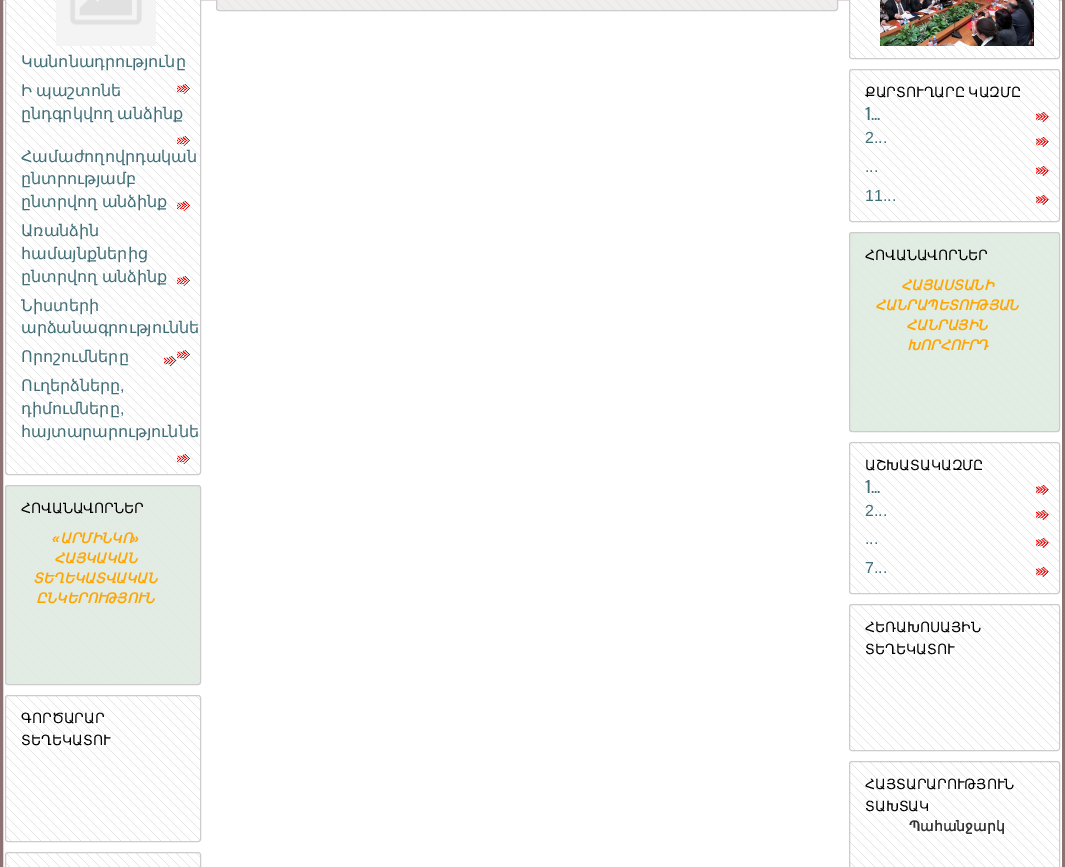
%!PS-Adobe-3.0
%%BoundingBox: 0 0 1065 867
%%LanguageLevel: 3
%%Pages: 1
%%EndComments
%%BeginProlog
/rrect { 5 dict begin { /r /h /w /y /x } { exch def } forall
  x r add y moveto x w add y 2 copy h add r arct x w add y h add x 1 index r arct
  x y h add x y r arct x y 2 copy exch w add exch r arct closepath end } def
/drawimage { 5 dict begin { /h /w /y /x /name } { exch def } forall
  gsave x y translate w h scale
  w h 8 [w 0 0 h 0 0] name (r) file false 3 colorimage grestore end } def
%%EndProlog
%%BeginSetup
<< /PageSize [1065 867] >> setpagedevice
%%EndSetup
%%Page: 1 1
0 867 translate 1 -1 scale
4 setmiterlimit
1 setgray
0 0 1065 867 rectfill
0.549 0.447 0.447 setrgbcolor
3 setlinewidth
1.5 -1.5 1062 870 rectstroke
(images/1.raw) 216 0 622 11 drawimage
0.8 setgray
1 setlinewidth
216.5 -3.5 621 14 2.5 rrect stroke
(images/2.raw) 6 0 194 475 drawimage
5.5 -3.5 195 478 2.5 rrect stroke
(images/3.raw) 56 0 100 46 drawimage
(images/4.raw) 177 84 13 10 drawimage
(images/5.raw) 177 136 13 10 drawimage
(images/6.raw) 177 201 13 10 drawimage
(images/5.raw) 177 276 13 10 drawimage
(images/7.raw) 177 350 13 10 drawimage
(images/8.raw) 164 356 13 10 drawimage
(images/4.raw) 177 454 13 10 drawimage
(images/9.raw) 5 485 196 200 drawimage
5.5 485.5 195 199 2.5 rrect stroke
(images/10.raw) 5 695 196 146 drawimage
5.5 695.5 195 146 2.5 rrect stroke
(images/11.raw) 5 852 195 15 drawimage
5.5 852.5 195 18 2.5 rrect stroke
(images/12.raw) 850 0 209 58 drawimage
849.5 -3.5 210 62 2.5 rrect stroke
(images/13.raw) 880 0 154 46 drawimage
(images/14.raw) 849 69 211 153 drawimage
849.5 69.5 210 152 2.5 rrect stroke
(images/15.raw) 1036 112 13 10 drawimage
(images/16.raw) 1036 137 13 10 drawimage
(images/17.raw) 1036 166 13 10 drawimage
(images/18.raw) 1036 195 13 10 drawimage
(images/19.raw) 849 232 211 200 drawimage
849.5 232.5 210 199 2.5 rrect stroke
(images/20.raw) 849 442 211 152 drawimage
849.5 442.5 210 151 2.5 rrect stroke
(images/15.raw) 1036 485 13 10 drawimage
(images/16.raw) 1036 510 13 10 drawimage
(images/18.raw) 1036 538 13 10 drawimage
(images/21.raw) 1036 567 13 10 drawimage
(images/22.raw) 849 604 211 146 drawimage
849.5 604.5 210 146 2.5 rrect stroke
(images/23.raw) 849 761 211 106 drawimage
849.5 761.5 210 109 2.5 rrect stroke
/DejaVuSans-Regular [16 0 0 -16 0 0] selectfont
0.259 0.439 0.475 setrgbcolor
21 67 moveto (Կանոնադրությունը) show
21 96 moveto -1 0 32 (Ի պաշտոնե) widthshow
21 119 moveto -1 0 32 (ընդգրկվող անձինք) widthshow
21 162 moveto (Համաժողովրդական) show
21 184 moveto (ընտրությամբ) show
21 207 moveto -1 0 32 (ընտրվող անձինք) widthshow
21 236 moveto (Առանձին) show
21 259 moveto (համայնքներից) show
21 282 moveto -1 0 32 (ընտրվող անձինք) widthshow
21 311 moveto (Նիստերի) show
21 333 moveto (արձանագրություննե) show
21 362 moveto (Որոշումները) show
21 391 moveto (Ուղերձները) show
/LiberationSans-Regular [16 0 0 -16 0 0] selectfont
120 391 moveto (,) show
/DejaVuSans-Regular [16 0 0 -16 0 0] selectfont
21 414 moveto (դիմումները) show
/LiberationSans-Regular [16 0 0 -16 0 0] selectfont
120 414 moveto (,) show
/DejaVuSans-Regular [16 0 0 -16 0 0] selectfont
21 437 moveto (հայտարարություննե) show
/DejaVuSans-Regular [14 0 0 -14 0 0] selectfont
0 setgray
21 513 moveto (ՀՈՎԱՆԱՎՈՐՆԵՐ) show
/LiberationSans-BoldItalic [14 0 0 -14 0 0] selectfont
1 0.647 0 setrgbcolor
52 543 moveto («) show
/DejaVuSans-BoldItalic [14 0 0 -14 0 0] selectfont
60 543 moveto (ԱՐՄԻՆԿՈ) show
/LiberationSans-BoldItalic [14 0 0 -14 0 0] selectfont
131 543 moveto (») show
/DejaVuSans-BoldItalic [14 0 0 -14 0 0] selectfont
54 563 moveto (ՀԱՅԿԱԿԱՆ) show
33 583 moveto (ՏԵՂԵԿԱՏՎԱԿԱՆ) show
36 603 moveto (ԸՆԿԵՐՈՒԹՅՈՒՆ) show
/DejaVuSans-Regular [14 0 0 -14 0 0] selectfont
0 setgray
21 723 moveto (ԳՈՐԾԱՐԱՐ) show
21 745 moveto (ՏԵՂԵԿԱՏՈՒ) show
865 97 moveto -1 0 32 (ՔԱՐՏՈՒՂԱՐԸ ԿԱԶՄԸ) widthshow
/Oswald-Regular [16 0 0 -16 0 0] selectfont
0.259 0.439 0.475 setrgbcolor
865 120 moveto (1...) show
/LiberationSans-Regular [16 0 0 -16 0 0] selectfont
865 143 moveto (2...) show
865 172 moveto (...) show
865 201 moveto (11...) show
/DejaVuSans-Regular [14 0 0 -14 0 0] selectfont
0 setgray
865 260 moveto (ՀՈՎԱՆԱՎՈՐՆԵՐ) show
/DejaVuSans-BoldItalic [14 0 0 -14 0 0] selectfont
1 0.647 0 setrgbcolor
901 290 moveto (ՀԱՅԱՍՏԱՆԻ) show
875 310 moveto (ՀԱՆՐԱՊԵՏՈՒԹՅԱՆ) show
906 330 moveto (ՀԱՆՐԱՅԻՆ) show
907 350 moveto (ԽՈՐՀՈՒՐԴ) show
/DejaVuSans-Regular [14 0 0 -14 0 0] selectfont
0 setgray
865 470 moveto (ԱՇԽԱՏԱԿԱԶՄԸ) show
/Oswald-Regular [16 0 0 -16 0 0] selectfont
0.259 0.439 0.475 setrgbcolor
865 493 moveto (1...) show
/LiberationSans-Regular [16 0 0 -16 0 0] selectfont
865 516 moveto (2...) show
865 544 moveto (...) show
865 573 moveto (7...) show
/DejaVuSans-Regular [14 0 0 -14 0 0] selectfont
0 setgray
865 632 moveto (ՀԵՌԱԽՈՍԱՅԻՆ) show
865 654 moveto (ՏԵՂԵԿԱՏՈՒ) show
865 789 moveto (ՀԱՅՏԱՐԱՐՈՒԹՅՈՒՆ) show
865 811 moveto (ՏԱԽՏԱԿ) show
/DejaVuSans-Bold [14 0 0 -14 0 0] selectfont
0.2 setgray
909 831 moveto (Պահանջարկ) show
showpage
%%EOF
